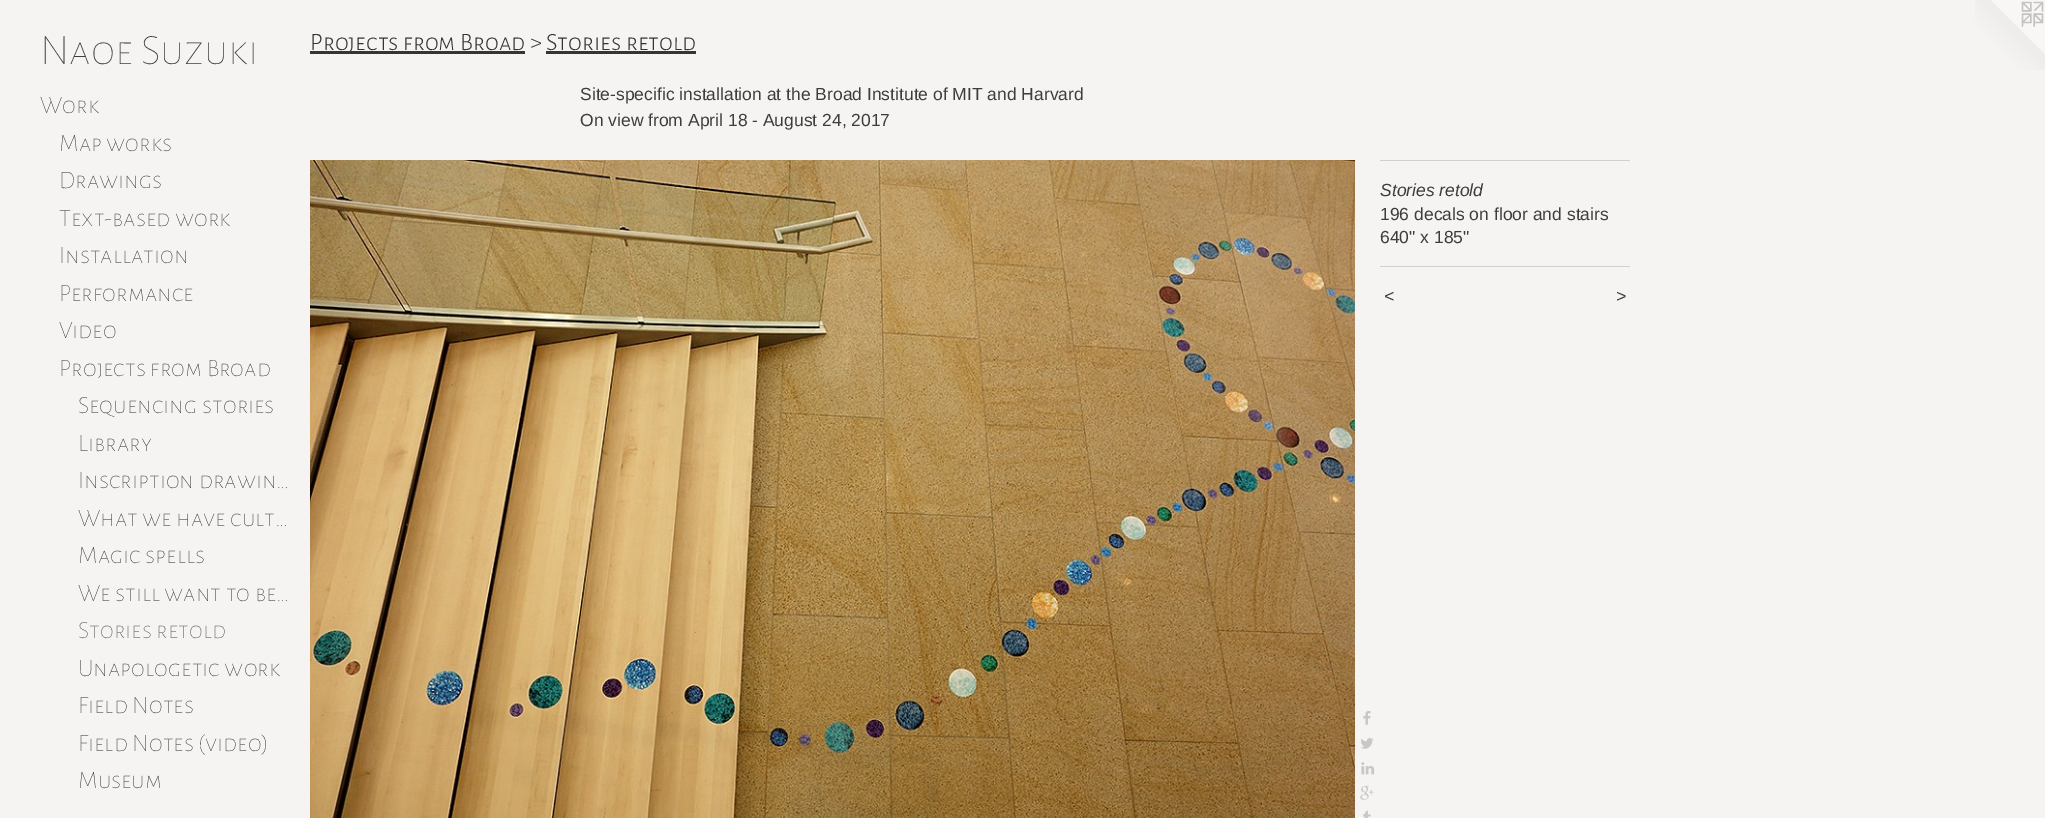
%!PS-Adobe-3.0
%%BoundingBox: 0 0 2045 818
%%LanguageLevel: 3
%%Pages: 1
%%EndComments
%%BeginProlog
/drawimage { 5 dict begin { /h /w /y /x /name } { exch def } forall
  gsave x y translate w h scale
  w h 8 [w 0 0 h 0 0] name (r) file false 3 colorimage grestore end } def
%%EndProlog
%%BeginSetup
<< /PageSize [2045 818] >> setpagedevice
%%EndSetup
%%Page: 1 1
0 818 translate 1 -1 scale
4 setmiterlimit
0.961 0.957 0.949 setrgbcolor
0 0 2045 818 rectfill
0.208 setgray
310 51 215 3 rectfill
(images/1.raw) 310 160 1045 658 drawimage
(images/2.raw) 1363 711 8 14 drawimage
(images/3.raw) 1360 738 14 11 drawimage
(images/4.raw) 1361 762 14 13 drawimage
(images/5.raw) 1360 785 14 15 drawimage
(images/6.raw) 1363 810 8 8 drawimage
0.82 0.816 0.812 setrgbcolor
1380 160 250 1 rectfill
1380 266 250 1 rectfill
(images/7.raw) 1975 0 70 70 drawimage
/AlegreyaSansSC-Thin [43.75 0 0 -43.75 0 0] selectfont
0.239 setgray
40 64 moveto (Naoe Suzuki) show
/AlegreyaSansSC-Thin [25 0 0 -25 0 0] selectfont
0.208 0.208 0.216 setrgbcolor
40 113 moveto (Work) show
59 151 moveto (Map works) show
59 188 moveto (Drawings) show
59 226 moveto (Text-based work) show
59 263 moveto (Installation) show
59 301 moveto (Performance) show
59 338 moveto (Video) show
59 376 moveto (Projects from Broad) show
78 413 moveto (Sequencing stories) show
78 451 moveto (Library) show
78 488 moveto (Inscription drawin…) show
78 526 moveto (What we have cult…) show
78 563 moveto (Magic spells) show
78 601 moveto (We still want to be…) show
0.306 0.306 0.318 setrgbcolor
78 638 moveto (Stories retold) show
0.208 0.208 0.216 setrgbcolor
78 676 moveto (Unapologetic work) show
78 713 moveto (Field Notes) show
78 751 moveto (Field Notes \(video\)) show
78 788 moveto (Museum) show
/AlegreyaSansSC-Light [25 0 0 -25 0 0] selectfont
310 50 moveto (Projects from Broad > Stories retold) show
0.208 setgray
546 51 150 3 rectfill
/LiberationSans-Regular [17.5 0 0 -17.5 0 0] selectfont
0.239 setgray
580 100 moveto (Site-specific installation at the Broad Institute of MIT and Harvard) show
580 126 moveto (On view from April 18 - August 24, 2017) show
/LiberationSans-Italic [17.5 0 0 -17.5 0 0] selectfont
1380 196 moveto (Stories retold) show
/LiberationSans-Regular [17.5 0 0 -17.5 0 0] selectfont
1380 220 moveto (196 decals on floor and stairs) show
1380 243 moveto (640" x 185") show
/LiberationSans-Italic [17.5 0 0 -17.5 0 0] selectfont
1384 302 moveto 1 0 (<) ashow
1616 302 moveto 1 0 (>) ashow
showpage
%%EOF
